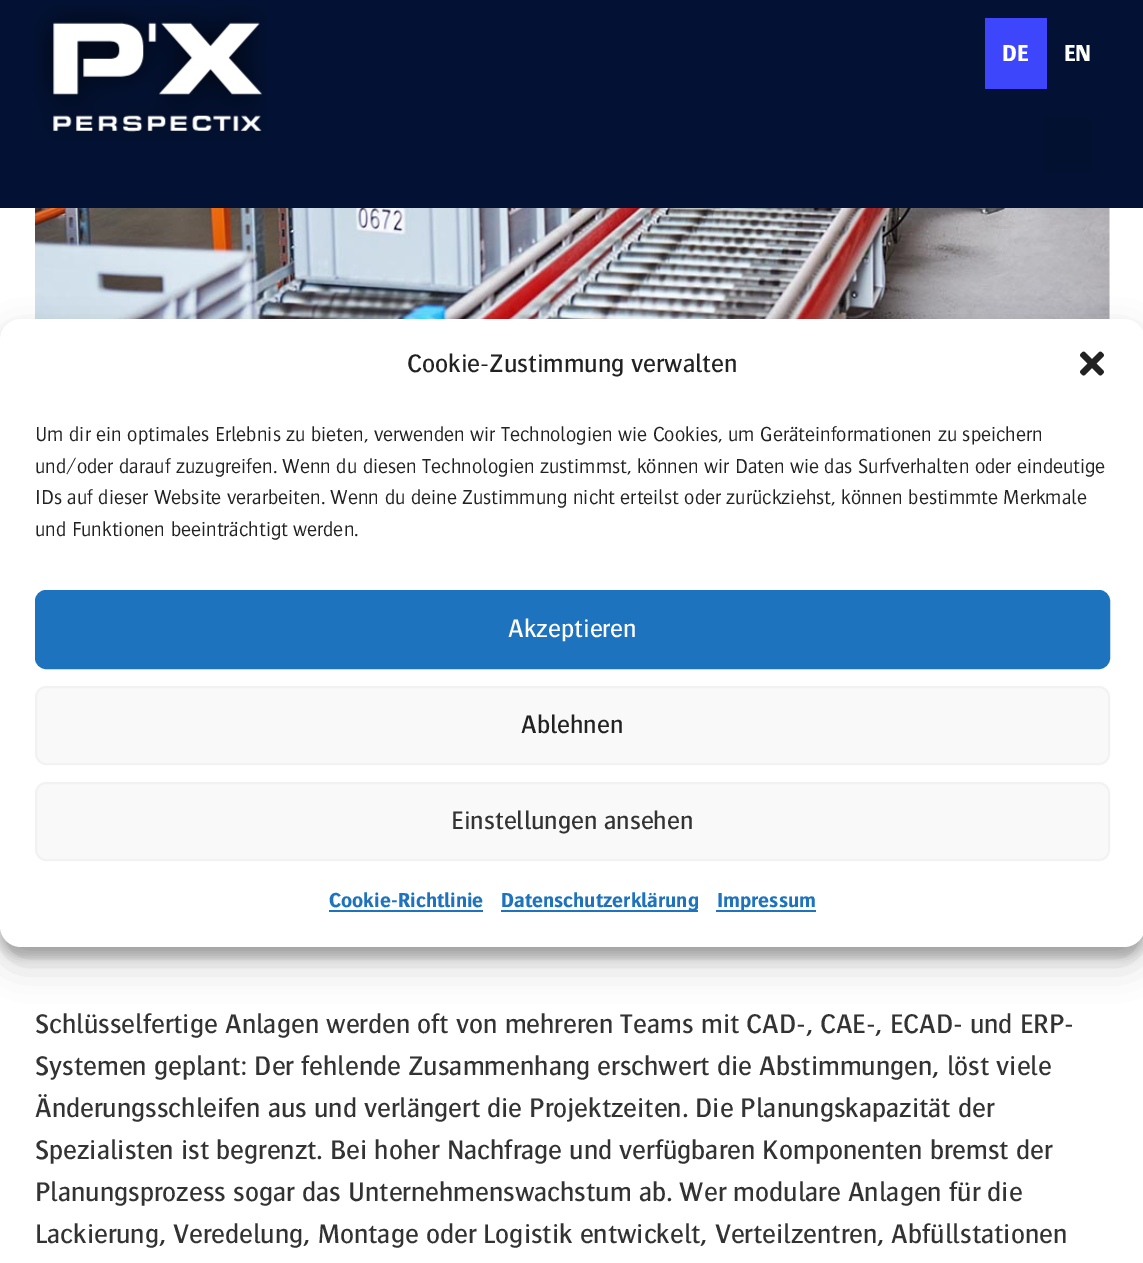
%!PS-Adobe-3.0
%%BoundingBox: 0 0 1143 1263
%%LanguageLevel: 3
%%Pages: 1
%%EndComments
%%BeginProlog
/setalpha { dup .setfillconstantalpha .setstrokeconstantalpha } def
/rrect { 5 dict begin { /r /h /w /y /x } { exch def } forall
  x r add y moveto x w add y 2 copy h add r arct x w add y h add x 1 index r arct
  x y h add x y r arct x y 2 copy exch w add exch r arct closepath end } def
/softshadow { 12 dict begin { /a /b /q /h /w /y /x } { exch def } forall gsave /was 0 def
  9 -2 -9 { dup b mul 4 div /e exch def 1 sub .425 mul 2.718 exch exp 1 add a .99 .min exch div /now exch def
    1 1 now sub 1 was sub div sub setalpha /was now def
    w h .min e 2 mul add 0 gt { x e sub y e sub w e 2 mul add h e 2 mul add
      q e add b .6 mul add w h .min 2 div e add .min 0 .max rrect fill } if } for grestore end } def
/drawimage { 5 dict begin { /h /w /y /x /name } { exch def } forall
  gsave x y translate w h scale
  w h 8 [w 0 0 h 0 0] name (r) file false 3 colorimage grestore end } def
%%EndProlog
%%BeginSetup
<< /PageSize [1143 1263] /PageUsesTransparency true >> setpagedevice
%%EndSetup
%%Page: 1 1
0 .pushpdf14devicefilter
0 1263 translate 1 -1 scale
4 setmiterlimit
1 setgray
0 0 1143 1263 rectfill
0.012 0.071 0.204 setrgbcolor
0 0 1143 208 rectfill
(images/1.raw) 33 4 234 137 drawimage
0.012 0.067 0.192 setrgbcolor
1043 116 49 57 5 rrect fill
0.239 0.275 0.984 setrgbcolor
985 18 62 71 rectfill
(images/3.raw) 35 208 1075 111 drawimage
0 setgray
0 329 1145 628 21 5 0.23 softshadow
0 336 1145 628 21 17.5 0.19 softshadow
1 setgray
0 319 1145 628 21 rrect fill
(images/2.raw) 1080 351 24 25 drawimage
0.118 0.451 0.745 setrgbcolor
36 591 1073 77 10 rrect gsave fill grestore
2 setlinewidth
stroke
0.976 setgray
36 687 1073 77 10 rrect gsave fill grestore
0.949 setgray
stroke
0.976 setgray
36 783 1073 77 10 rrect gsave fill grestore
0.949 setgray
stroke
0.118 0.451 0.745 setrgbcolor
329 910 154 2 rectfill
501 910 197 2 rectfill
716 910 100 2 rectfill
/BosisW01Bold-Bold [24 0 0 -24 0 0] selectfont
1 setgray
1002 61 moveto (DE) show
1064 61 moveto (EN) show
/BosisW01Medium-Medium [26.25 0 0 -26.25 0 0] selectfont
0.133 setgray
407 372 moveto (Cookie-Zustimmung verwalten) show
/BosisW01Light-Light [21 0 0 -21 0 0] selectfont
35 441 moveto (Um dir ein optimales Erlebnis zu bieten, verwenden wir Technologien wie Cookies, um Geräteinformationen zu speichern) show
35 473 moveto (und/oder darauf zuzugreifen. Wenn du diesen Technologien zustimmst, können wir Daten wie das Surfverhalten oder eindeutige) show
35 504 moveto (IDs auf dieser Website verarbeiten. Wenn du deine Zustimmung nicht erteilst oder zurückziehst, können bestimmte Merkmale) show
35 536 moveto (und Funktionen beeinträchtigt werden.) show
/BosisW01Medium-Medium [26.25 0 0 -26.25 0 0] selectfont
1 setgray
508 637 moveto (Akzeptieren) show
0.133 setgray
521 733 moveto (Ablehnen) show
0.2 setgray
451 829 moveto (Einstellungen ansehen) show
/BosisW01Bold-Bold [21 0 0 -21 0 0] selectfont
0.118 0.451 0.745 setrgbcolor
329 907 moveto (Cookie-Richtlinie) show
501 907 moveto (Datenschutzerklärung) show
717 907 moveto (Impressum) show
/BosisW01Medium-Medium [28 0 0 -28 0 0] selectfont
0.2 setgray
35 1033 moveto (Schlüsselfertige Anlagen werden oft von mehreren Teams mit CAD-, CAE-, ECAD- und ERP-) show
35 1075 moveto (Systemen geplant: Der fehlende Zusammenhang erschwert die Abstimmungen, löst viele) show
35 1117 moveto (Änderungsschleifen aus und verlängert die Projektzeiten. Die Planungskapazität der) show
35 1159 moveto (Spezialisten ist begrenzt. Bei hoher Nachfrage und verfügbaren Komponenten bremst der) show
35 1201 moveto (Planungsprozess sogar das Unternehmenswachstum ab. Wer modulare Anlagen für die) show
35 1243 moveto (Lackierung, Veredelung, Montage oder Logistik entwickelt, Verteilzentren, Abfüllstationen) show
.poppdf14devicefilter showpage
%%EOF
